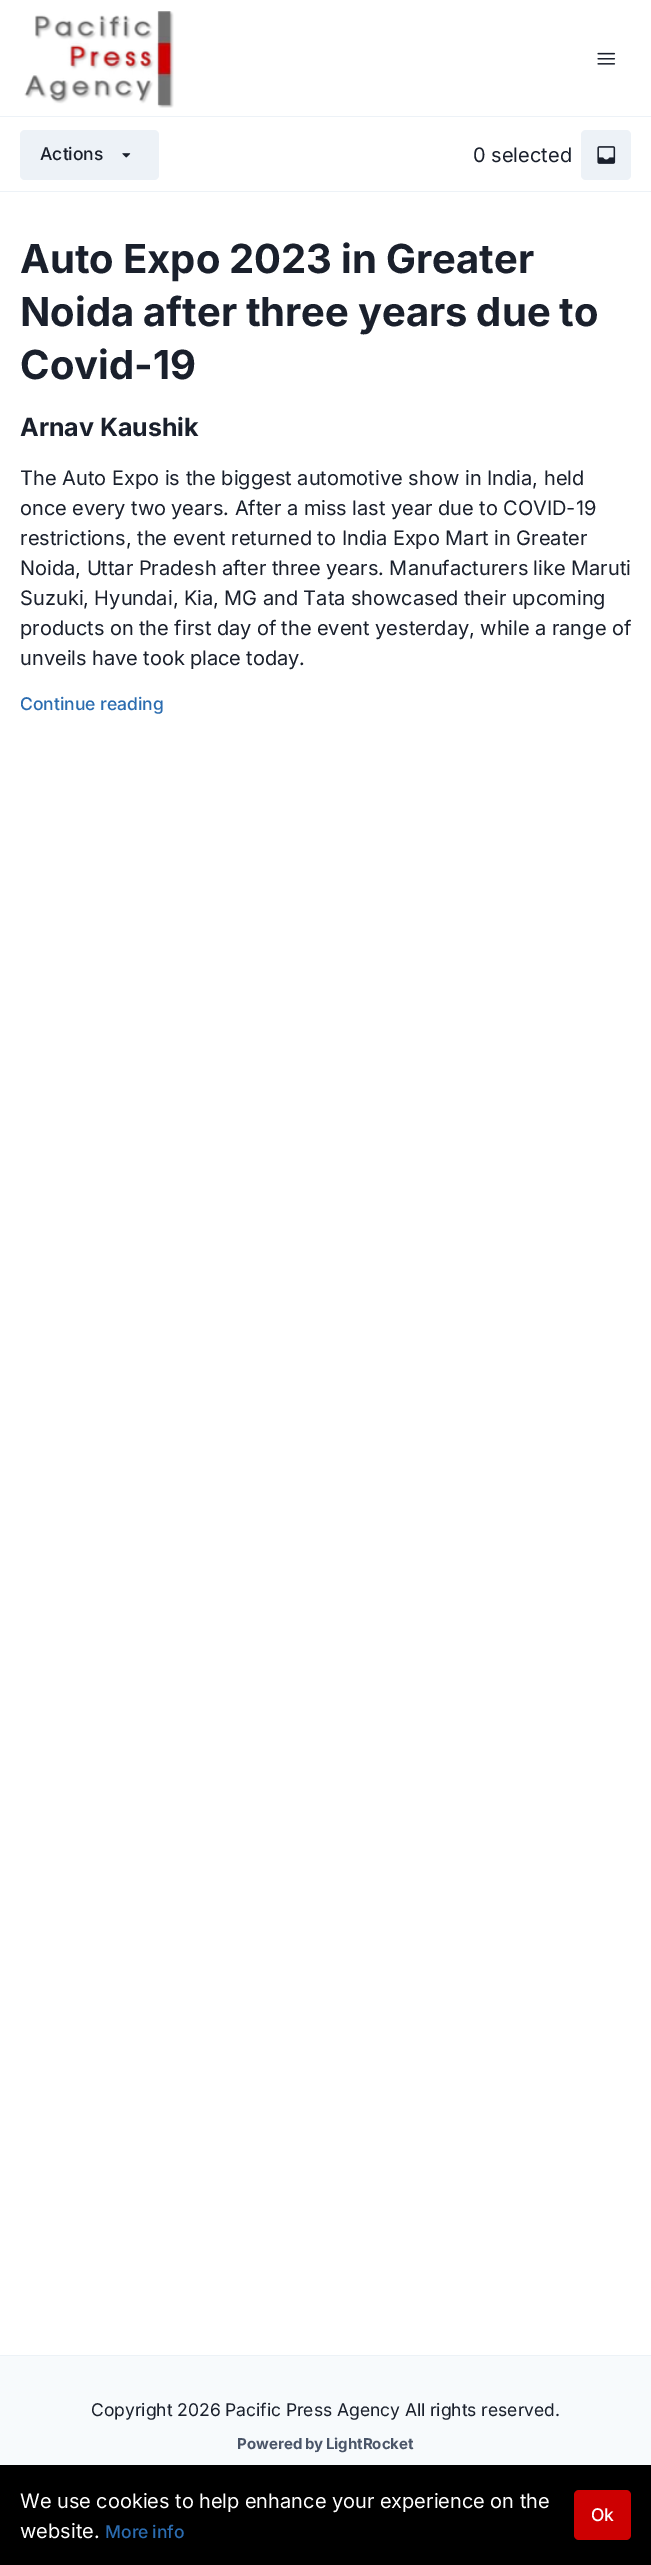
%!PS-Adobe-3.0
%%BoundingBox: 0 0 651 2565
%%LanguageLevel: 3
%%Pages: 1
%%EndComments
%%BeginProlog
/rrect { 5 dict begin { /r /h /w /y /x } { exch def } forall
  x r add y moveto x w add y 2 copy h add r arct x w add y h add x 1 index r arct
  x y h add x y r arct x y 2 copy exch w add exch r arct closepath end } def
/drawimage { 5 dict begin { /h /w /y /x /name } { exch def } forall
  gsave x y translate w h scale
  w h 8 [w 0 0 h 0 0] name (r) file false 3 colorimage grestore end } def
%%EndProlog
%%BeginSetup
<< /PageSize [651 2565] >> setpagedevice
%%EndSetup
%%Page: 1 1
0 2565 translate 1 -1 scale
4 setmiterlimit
1 setgray
0 0 651 2565 rectfill
0.929 0.949 0.969 setrgbcolor
0 116 651 1 rectfill
(images/1.raw) 24 11 150 97 drawimage
(images/2.raw) 597 52 19 13 drawimage
0 191 651 1 rectfill
20 130 139 50 5 rrect fill
(images/3.raw) 122 153 9 5 drawimage
581 130 50 50 5 rrect fill
(images/4.raw) 597 146 19 18 drawimage
0.969 0.98 0.988 setrgbcolor
0 2356 651 109 rectfill
0.929 0.949 0.969 setrgbcolor
0 2355 651 1 rectfill
0 setgray
0 2465 651 100 rectfill
0.804 0 0.004 setrgbcolor
574 2490 57 50 5 rrect fill
/Inter-Medium [17.5 0 0 -17.5 0 0] selectfont
0.102 0.125 0.173 setrgbcolor
40 160 moveto (Actions) show
/Inter-Regular [20 0 0 -20 0 0] selectfont
473 162 moveto (0 selected) show
/Inter-Bold [40 0 0 -40 0 0] selectfont
20 273 moveto -0.5 0 32 (Auto Expo 2023 in Greater) widthshow
20 326 moveto -0.75 0 32 (Noida after three years due to) widthshow
20 379 moveto (Covid-19) show
/Inter-Bold [25 0 0 -25 0 0] selectfont
20 436 moveto (Arnav Kaushik) show
/Inter-Regular [20 0 0 -20 0 0] selectfont
20 485 moveto (The Auto Expo is the biggest automotive show in India, held) show
20 515 moveto -0.25 0 32 (once every two years. After a miss last year due to COVID-19) widthshow
20 545 moveto -0.1 0 32 (restrictions, the event returned to India Expo Mart in Greater) widthshow
20 575 moveto -0.25 0 32 (Noida, Uttar Pradesh after three years. Manufacturers like Maruti) widthshow
20 605 moveto -0.25 0 32 (Suzuki, Hyundai, Kia, MG and Tata showcased their upcoming) widthshow
20 635 moveto -0.25 0 32 (products on the first day of the event yesterday, while a range of) widthshow
20 665 moveto -0.5 0 32 (unveils have took place today.) widthshow
/Inter-Medium [17.5 0 0 -17.5 0 0] selectfont
0.169 0.424 0.69 setrgbcolor
20 710 moveto (Continue reading) show
/Inter-Regular [17.5 0 0 -17.5 0 0] selectfont
0.102 0.125 0.173 setrgbcolor
91 2416 moveto -0.25 0 32 (Copyright 2026 Pacific Press Agency All rights reserved.) widthshow
/Inter-Bold [15 0 0 -15 0 0] selectfont
0.29 0.333 0.408 setrgbcolor
237 2449 moveto -1 0 32 (Powered by LightRocket) widthshow
/Inter-Regular [20 0 0 -20 0 0] selectfont
1 setgray
20 2508 moveto -0.25 0 32 (We use cookies to help enhance your experience on the) widthshow
20 2538 moveto (website.) show
/Inter-Medium [17.5 0 0 -17.5 0 0] selectfont
0.169 0.424 0.69 setrgbcolor
105 2538 moveto -1 0 32 (More info) widthshow
1 setgray
591 2521 moveto (Ok) show
showpage
%%EOF
